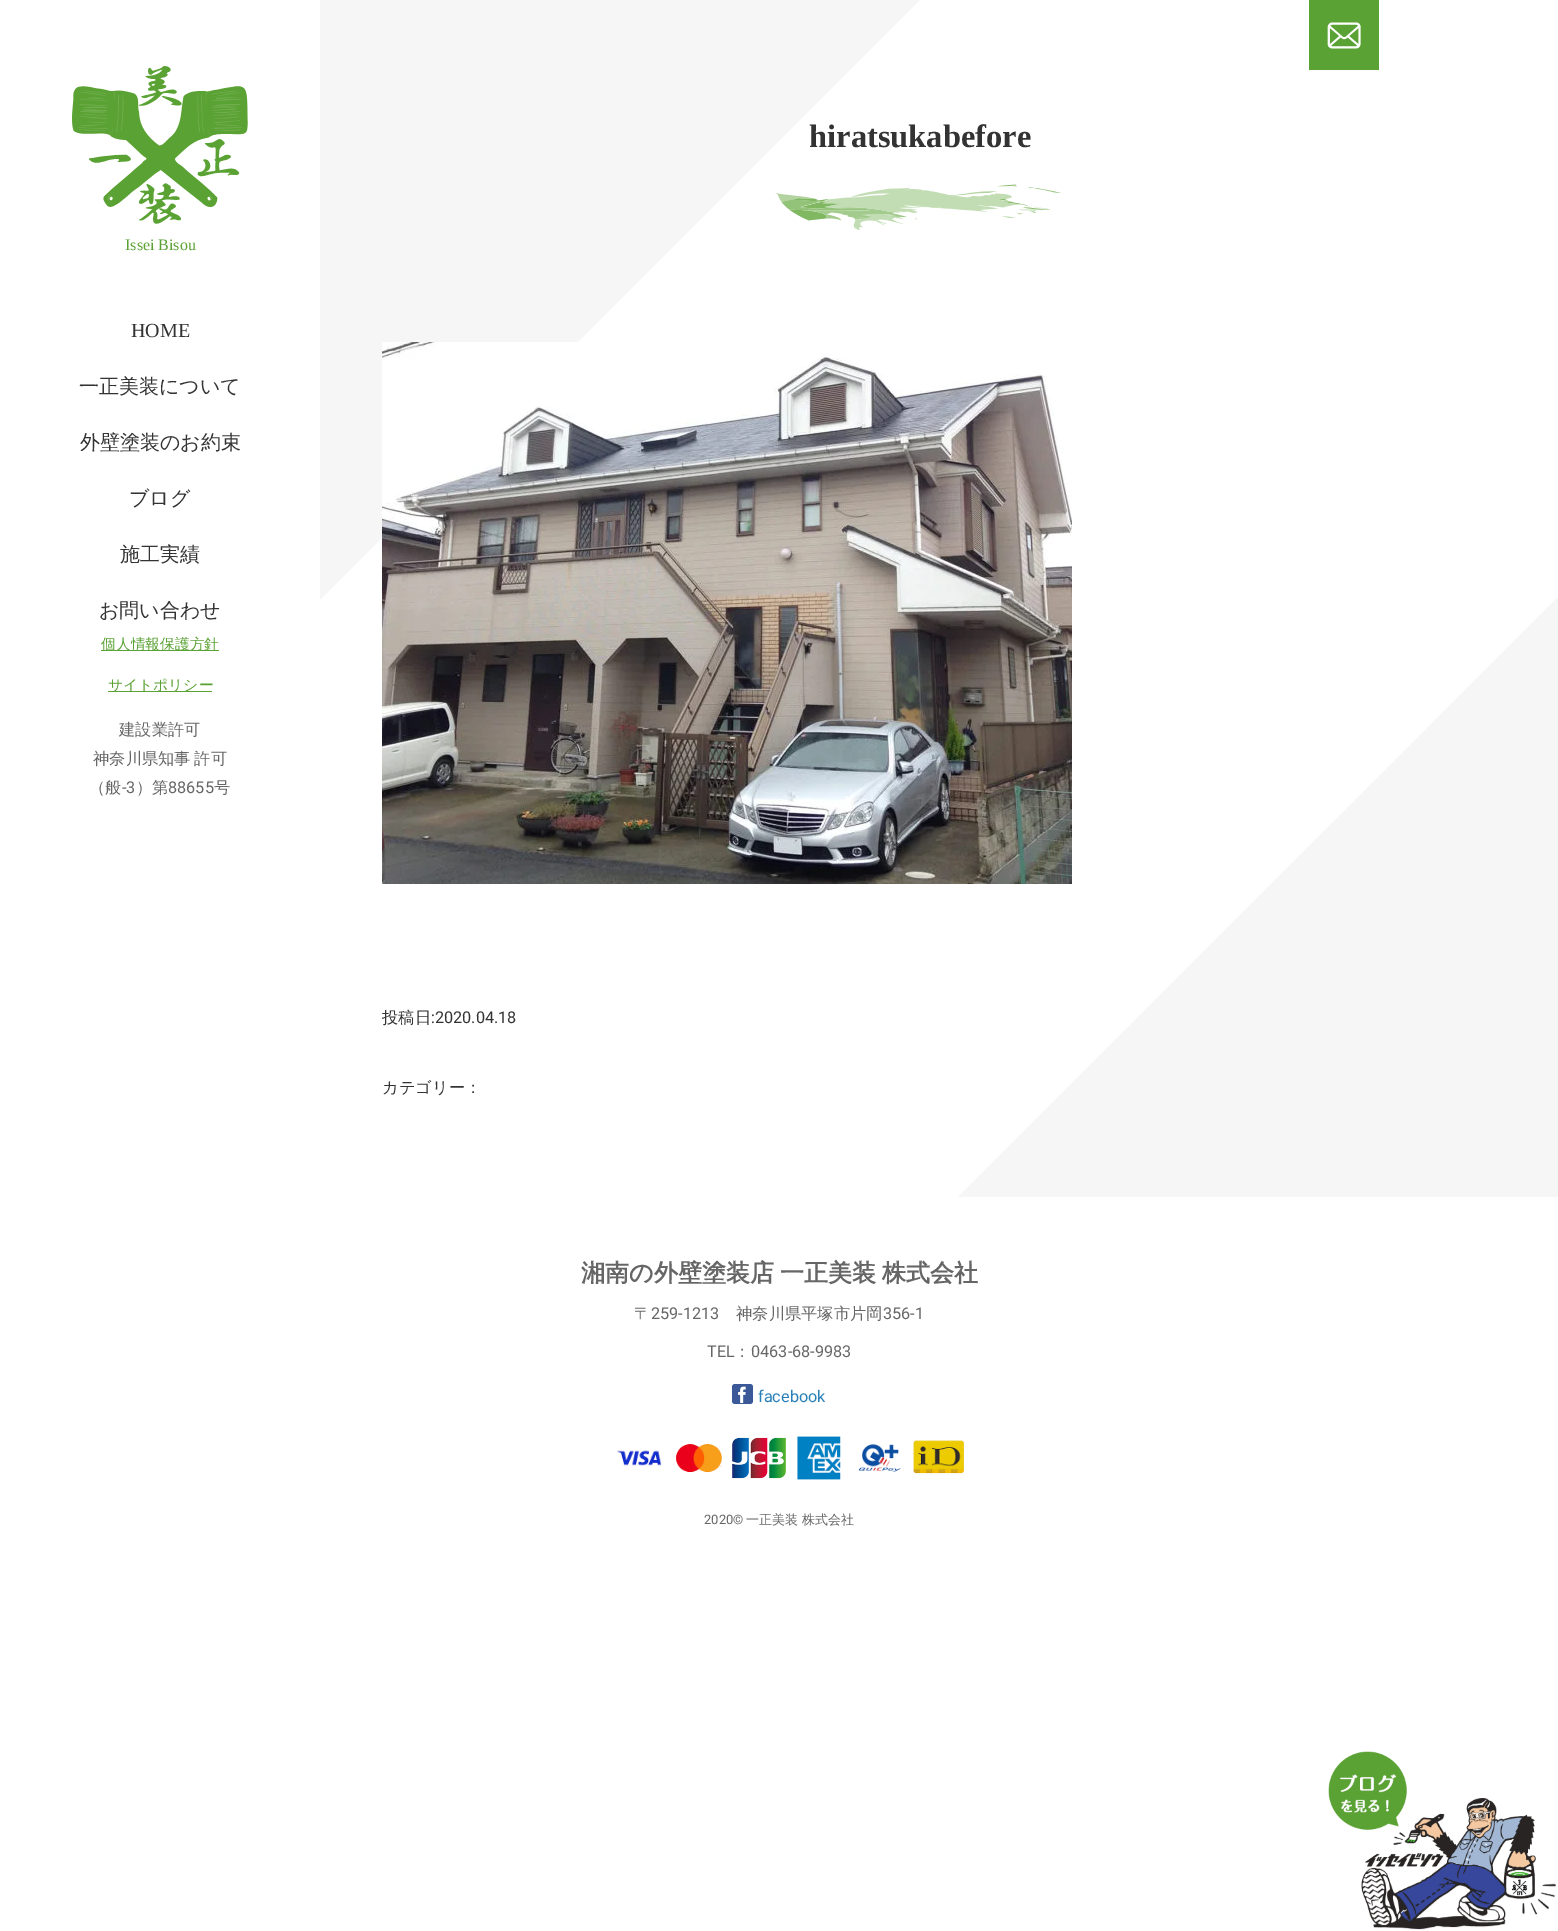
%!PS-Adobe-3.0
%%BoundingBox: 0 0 1558 1931
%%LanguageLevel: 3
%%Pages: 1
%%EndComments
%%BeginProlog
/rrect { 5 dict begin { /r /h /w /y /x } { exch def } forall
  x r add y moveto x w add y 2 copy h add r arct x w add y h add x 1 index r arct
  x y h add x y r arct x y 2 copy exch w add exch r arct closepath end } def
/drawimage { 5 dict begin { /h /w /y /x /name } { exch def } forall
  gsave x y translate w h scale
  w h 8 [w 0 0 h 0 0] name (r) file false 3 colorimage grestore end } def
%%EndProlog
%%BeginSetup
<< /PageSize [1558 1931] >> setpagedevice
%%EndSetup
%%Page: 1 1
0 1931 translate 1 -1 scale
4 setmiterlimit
1 setgray
0 0 1558 1931 rectfill
(images/1.raw) 72 66 176 158 drawimage
0.353 0.635 0.2 setrgbcolor
1309 0 70 70 rectfill
(images/2.raw) 1327 22 34 27 drawimage
gsave newpath 320 0 moveto 920 0 lineto 920 599 lineto 320 599 lineto closepath clip newpath
<< /ShadingType 2 /ColorSpace /DeviceRGB /Coords [320 0 920 600] /Extend [true true] /Function << /FunctionType 3 /Domain [0 1] /Functions [<< /FunctionType 2 /Domain [0 1] /C0 [0.965 0.965 0.965] /C1 [0.965 0.965 0.965] /N 1 >> << /FunctionType 2 /Domain [0 1] /C0 [1 1 1] /C1 [1 1 1] /N 1 >>] /Bounds [0.5] /Encode [0 1 0 1] >> >> shfill grestore
(images/3.raw) 775 184 286 47 drawimage
gsave newpath 959 598 moveto 1558 598 lineto 1558 1197 lineto 959 1197 lineto closepath clip newpath
<< /ShadingType 2 /ColorSpace /DeviceRGB /Coords [1558 1197 958 597] /Extend [true true] /Function << /FunctionType 3 /Domain [0 1] /Functions [<< /FunctionType 2 /Domain [0 1] /C0 [0.965 0.965 0.965] /C1 [0.965 0.965 0.965] /N 1 >> << /FunctionType 2 /Domain [0 1] /C0 [1 1 1] /C1 [1 1 1] /N 1 >>] /Bounds [0.5] /Encode [0 1 0 1] >> >> shfill grestore
(images/4.raw) 382 342 690 542 drawimage
101 650 118 1 rectfill
108 691 104 1 rectfill
0.231 0.349 0.596 setrgbcolor
732 1384 21 20 3 rrect fill
(images/5.raw) 738 1386 8 17 drawimage
(images/6.raw) 617 1450 45 16 drawimage
(images/7.raw) 675 1444 47 28 drawimage
(images/8.raw) 732 1437 54 42 drawimage
(images/9.raw) 797 1436 44 44 drawimage
(images/10.raw) 858 1444 43 28 drawimage
(images/11.raw) 913 1440 51 34 drawimage
(images/13.raw) 1361 1798 195 132 drawimage
(images/12.raw) 1328 1751 79 79 drawimage
/LiberationSerif-Regular [16 0 0 -16 0 0] selectfont
0.353 0.635 0.2 setrgbcolor
125 250 moveto (Issei Bisou) show
/LiberationSerif-Regular [20 0 0 -20 0 0] selectfont
0.2 setgray
131 337 moveto (HOME) show
/WenQuanYiZenHei-Medium [20 0 0 -20 0 0] selectfont
79 393 moveto (一正美装について) show
80 449 moveto (外壁塗装のお約束) show
129 505 moveto (ブログ) show
120 561 moveto (施工実績) show
99 617 moveto (お問い合わせ) show
/LiberationSerif-Bold [32.5 0 0 -32.5 0 0] selectfont
809 147 moveto (hiratsukabefore) show
/WenQuanYiZenHei-Medium [16.25 0 0 -16.25 0 0] selectfont
382 1023 moveto (投稿日) show
/Roboto-Regular [16.25 0 0 -16.25 0 0] selectfont
431 1023 moveto (:2020.04.18) show
/WenQuanYiZenHei-Medium [16.25 0 0 -16.25 0 0] selectfont
382 1093 moveto (カテゴリー：) show
/WenQuanYiZenHei-Medium [14.75 0 0 -14.75 0 0] selectfont
0.353 0.635 0.2 setrgbcolor
101 649 moveto (個人情報保護方針) show
108 690 moveto (サイトポリシー) show
/WenQuanYiZenHei-Medium [16.25 0 0 -16.25 0 0] selectfont
0.4 setgray
119 735 moveto (建設業許可) show
93 764 moveto -1 0 32 (神奈川県知事 許可) widthshow
89 793 moveto (（般) show
/Roboto-Regular [16.25 0 0 -16.25 0 0] selectfont
122 793 moveto (-3) show
/WenQuanYiZenHei-Medium [16.25 0 0 -16.25 0 0] selectfont
136 793 moveto (）第) show
/Roboto-Regular [16.25 0 0 -16.25 0 0] selectfont
168 793 moveto (88655) show
/WenQuanYiZenHei-Medium [16.25 0 0 -16.25 0 0] selectfont
214 793 moveto (号) show
/WenQuanYiZenHei-Bold [24 0 0 -24 0 0] selectfont
581 1281 moveto -1 0 32 (湘南の外壁塗装店 一正美装 株式会社) widthshow
/WenQuanYiZenHei-Medium [16.25 0 0 -16.25 0 0] selectfont
634 1319 moveto (〒) show
/Roboto-Regular [16.25 0 0 -16.25 0 0] selectfont
651 1319 moveto (259-1213) show
/WenQuanYiZenHei-Medium [16.25 0 0 -16.25 0 0] selectfont
736 1319 moveto (神奈川県平塚市片岡) show
/Roboto-Regular [16.25 0 0 -16.25 0 0] selectfont
883 1319 moveto (356-1) show
707 1357 moveto (TEL) show
/WenQuanYiZenHei-Medium [16.25 0 0 -16.25 0 0] selectfont
734 1357 moveto (：) show
/Roboto-Regular [16.25 0 0 -16.25 0 0] selectfont
751 1357 moveto (0463-68-9983) show
0.161 0.502 0.725 setrgbcolor
758 1402 moveto (facebook) show
/Roboto-Regular [13 0 0 -13 0 0] selectfont
0.4 setgray
704 1524 moveto (2020©) show
/WenQuanYiZenHei-Medium [13 0 0 -13 0 0] selectfont
746 1524 moveto (一正美装 株式会社) show
showpage
%%EOF
